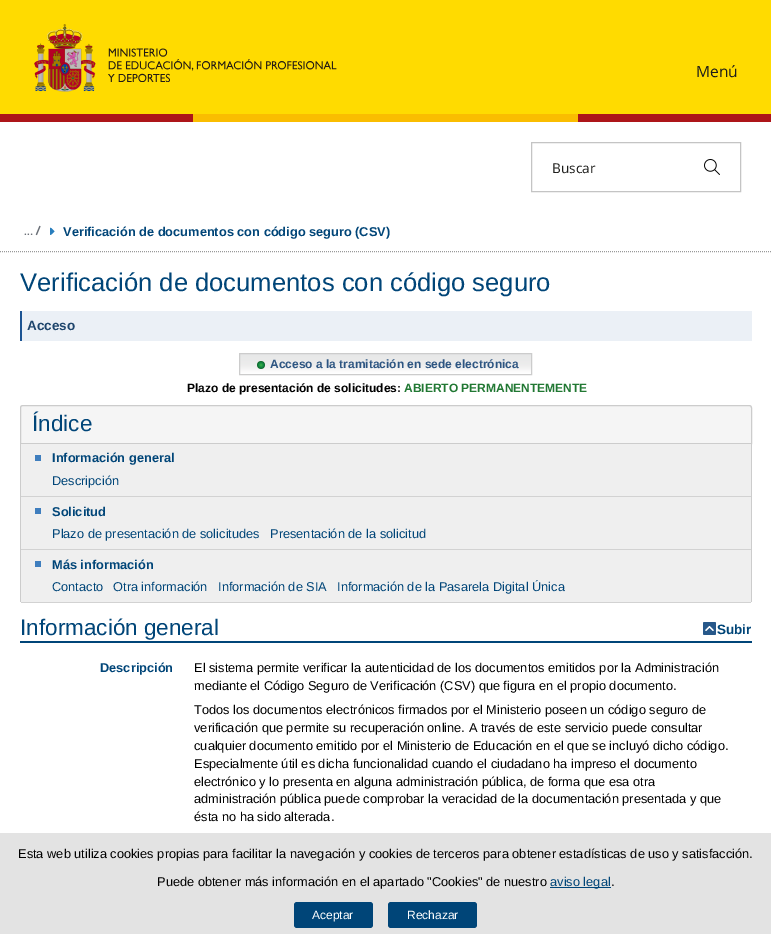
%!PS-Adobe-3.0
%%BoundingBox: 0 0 771 934
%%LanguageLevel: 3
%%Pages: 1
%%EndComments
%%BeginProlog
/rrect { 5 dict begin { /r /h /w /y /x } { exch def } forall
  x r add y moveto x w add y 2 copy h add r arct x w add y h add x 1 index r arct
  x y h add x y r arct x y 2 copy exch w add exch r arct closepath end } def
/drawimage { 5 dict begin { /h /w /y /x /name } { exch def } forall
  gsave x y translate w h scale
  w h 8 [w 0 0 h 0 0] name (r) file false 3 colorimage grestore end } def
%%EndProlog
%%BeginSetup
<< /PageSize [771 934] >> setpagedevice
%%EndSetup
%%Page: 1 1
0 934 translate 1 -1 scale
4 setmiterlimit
1 setgray
0 0 771 934 rectfill
0.89 setgray
0 833 771 101 rectfill
1 0.859 0 setrgbcolor
0 0 771 114 rectfill
(images/1.raw) 34 24 303 68 drawimage
0.769 setgray
531.5 142.5 209 49 rectstroke
(images/2.raw) 704 159 16 16 drawimage
0.678 0.082 0.098 setrgbcolor
0 114 193 8 rectfill
0.98 0.741 0 setrgbcolor
193 114 385 8 rectfill
0.678 0.082 0.098 setrgbcolor
578 114 193 8 rectfill
0.6 setgray
[1 1] 0 setdash
newpath 0 251.5 moveto 771 251.5 lineto stroke
(images/3.raw) 24 225 17 11 drawimage
(images/4.raw) 50 227 5 8 drawimage
0.922 0.941 0.965 setrgbcolor
22 311 730 30 rectfill
0.11 0.329 0.576 setrgbcolor
20 311 2 30 rectfill
(images/5.raw) 240 354 291 20 drawimage
0.8 setgray
[] 0 setdash
239.5 353.5 292 21 rectstroke
(images/6.raw) 257 361 8 8 drawimage
0.961 setgray
newpath 23 405.5 moveto 749 405.5 lineto 750.5 405.5 751.5 406.5 751.5 408 curveto 751.5 443.5 lineto 20.5 443.5 lineto 20.5 408 lineto 20.5 406.5 21.5 405.5 23 405.5 curveto closepath gsave fill grestore
0.8 setgray
stroke
751 444 1 158 rectfill
20 444 1 158 rectfill
0.937 setgray
21 444 730 52 rectfill
0.824 setgray
21 496 730 1 rectfill
0.247 0.494 0.745 setrgbcolor
35 455 6 6 rectfill
0.937 setgray
21 497 730 52 rectfill
0.824 setgray
21 549 730 1 rectfill
0.247 0.494 0.745 setrgbcolor
35 508 6 6 rectfill
0.937 setgray
21 550 730 52 rectfill
0.824 setgray
21 602 730 1 rectfill
0.247 0.494 0.745 setrgbcolor
35 561 6 6 rectfill
0 0.271 0.471 setrgbcolor
20 641 732 2 rectfill
(images/7.raw) 703 622 13 13 drawimage
550 887 61 1 rectfill
294 902 79 26 3 rrect fill
388 902 89 26 3 rrect fill
/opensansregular-Regular [16 0 0 -16 0 0] selectfont
0.114 0.114 0.106 setrgbcolor
696 77 moveto (Menú) show
/opensansregular-Regular [14 0 0 -14 0 0] selectfont
552 173 moveto (Buscar) show
/LiberationSans-Bold [12.8 0 0 -12.8 0 0] selectfont
0 0.271 0.471 setrgbcolor
63 236 moveto (Verificación de documentos con código seguro \(CSV\)) show
/LiberationSans-Regular [25.6 0 0 -25.6 0 0] selectfont
20 291 moveto (Verificación de documentos con código seguro) show
/LiberationSans-Bold [13.5 0 0 -13.5 0 0] selectfont
0.122 0.275 0.427 setrgbcolor
27 330 moveto (Acceso) show
/LiberationSans-Bold [12 0 0 -12 0 0] selectfont
0.176 0.333 0.51 setrgbcolor
270 368 moveto (Acceso a la tramitación en sede electrónica) show
0 setgray
187 392 moveto (Plazo de presentación de solicitudes:) show
0.129 0.471 0.2 setrgbcolor
404 392 moveto (ABIERTO PERMANENTEMENTE) show
/LiberationSans-Regular [22.5 0 0 -22.5 0 0] selectfont
0 0.271 0.471 setrgbcolor
32 431 moveto (Índice) show
/LiberationSans-Bold [12.8 0 0 -12.8 0 0] selectfont
52 462 moveto (Información general) show
/LiberationSans-Regular [12.8 0 0 -12.8 0 0] selectfont
52 485 moveto (Descripción) show
/LiberationSans-Bold [12.8 0 0 -12.8 0 0] selectfont
52 516 moveto (Solicitud) show
/LiberationSans-Regular [12.8 0 0 -12.8 0 0] selectfont
52 538 moveto (Plazo de presentación de solicitudes) show
270 538 moveto (Presentación de la solicitud) show
/LiberationSans-Bold [12.8 0 0 -12.8 0 0] selectfont
52 569 moveto (Más información) show
/LiberationSans-Regular [12.8 0 0 -12.8 0 0] selectfont
52 591 moveto (Contacto) show
113 591 moveto (Otra información) show
218 591 moveto (Información de SIA) show
337 591 moveto (Información de la Pasarela Digital Única) show
/LiberationSans-Regular [22.5 0 0 -22.5 0 0] selectfont
20 635 moveto (Información general) show
/LiberationSans-Bold [13.5 0 0 -13.5 0 0] selectfont
717 634 moveto (Subir) show
/LiberationSans-Bold [12.8 0 0 -12.8 0 0] selectfont
100 672 moveto (Descripción) show
/LiberationSans-Regular [12.8 0 0 -12.8 0 0] selectfont
0 setgray
194 672 moveto (El sistema permite verificar la autenticidad de los documentos emitidos por la Administración) show
194 690 moveto (mediante el Código Seguro de Verificación \(CSV\) que figura en el propio documento.) show
194 714 moveto (Todos los documentos electrónicos firmados por el Ministerio poseen un código seguro de) show
194 732 moveto (verificación que permite su recuperación online. A través de este servicio puede consultar) show
194 750 moveto (cualquier documento emitido por el Ministerio de Educación en el que se incluyó dicho código.) show
194 768 moveto (Especialmente útil es dicha funcionalidad cuando el ciudadano ha impreso el documento) show
194 786 moveto (electrónico y lo presenta en alguna administración pública, de forma que esa otra) show
194 803 moveto (administración pública puede comprobar la veracidad de la documentación presentada y que) show
194 821 moveto (ésta no ha sido alterada.) show
18 858 moveto (Esta web utiliza cookies propias para facilitar la navegación y cookies de terceros para obtener estadísticas de uso y satisfacción.) show
157 886 moveto (Puede obtener más información en el apartado "Cookies" de nuestro) show
0 0.271 0.471 setrgbcolor
550 886 moveto (aviso legal) show
0 setgray
611 886 moveto (.) show
/LiberationSans-Regular [12 0 0 -12 0 0] selectfont
1 setgray
312 919 moveto (Aceptar) show
407 919 moveto (Rechazar) show
showpage
%%EOF
